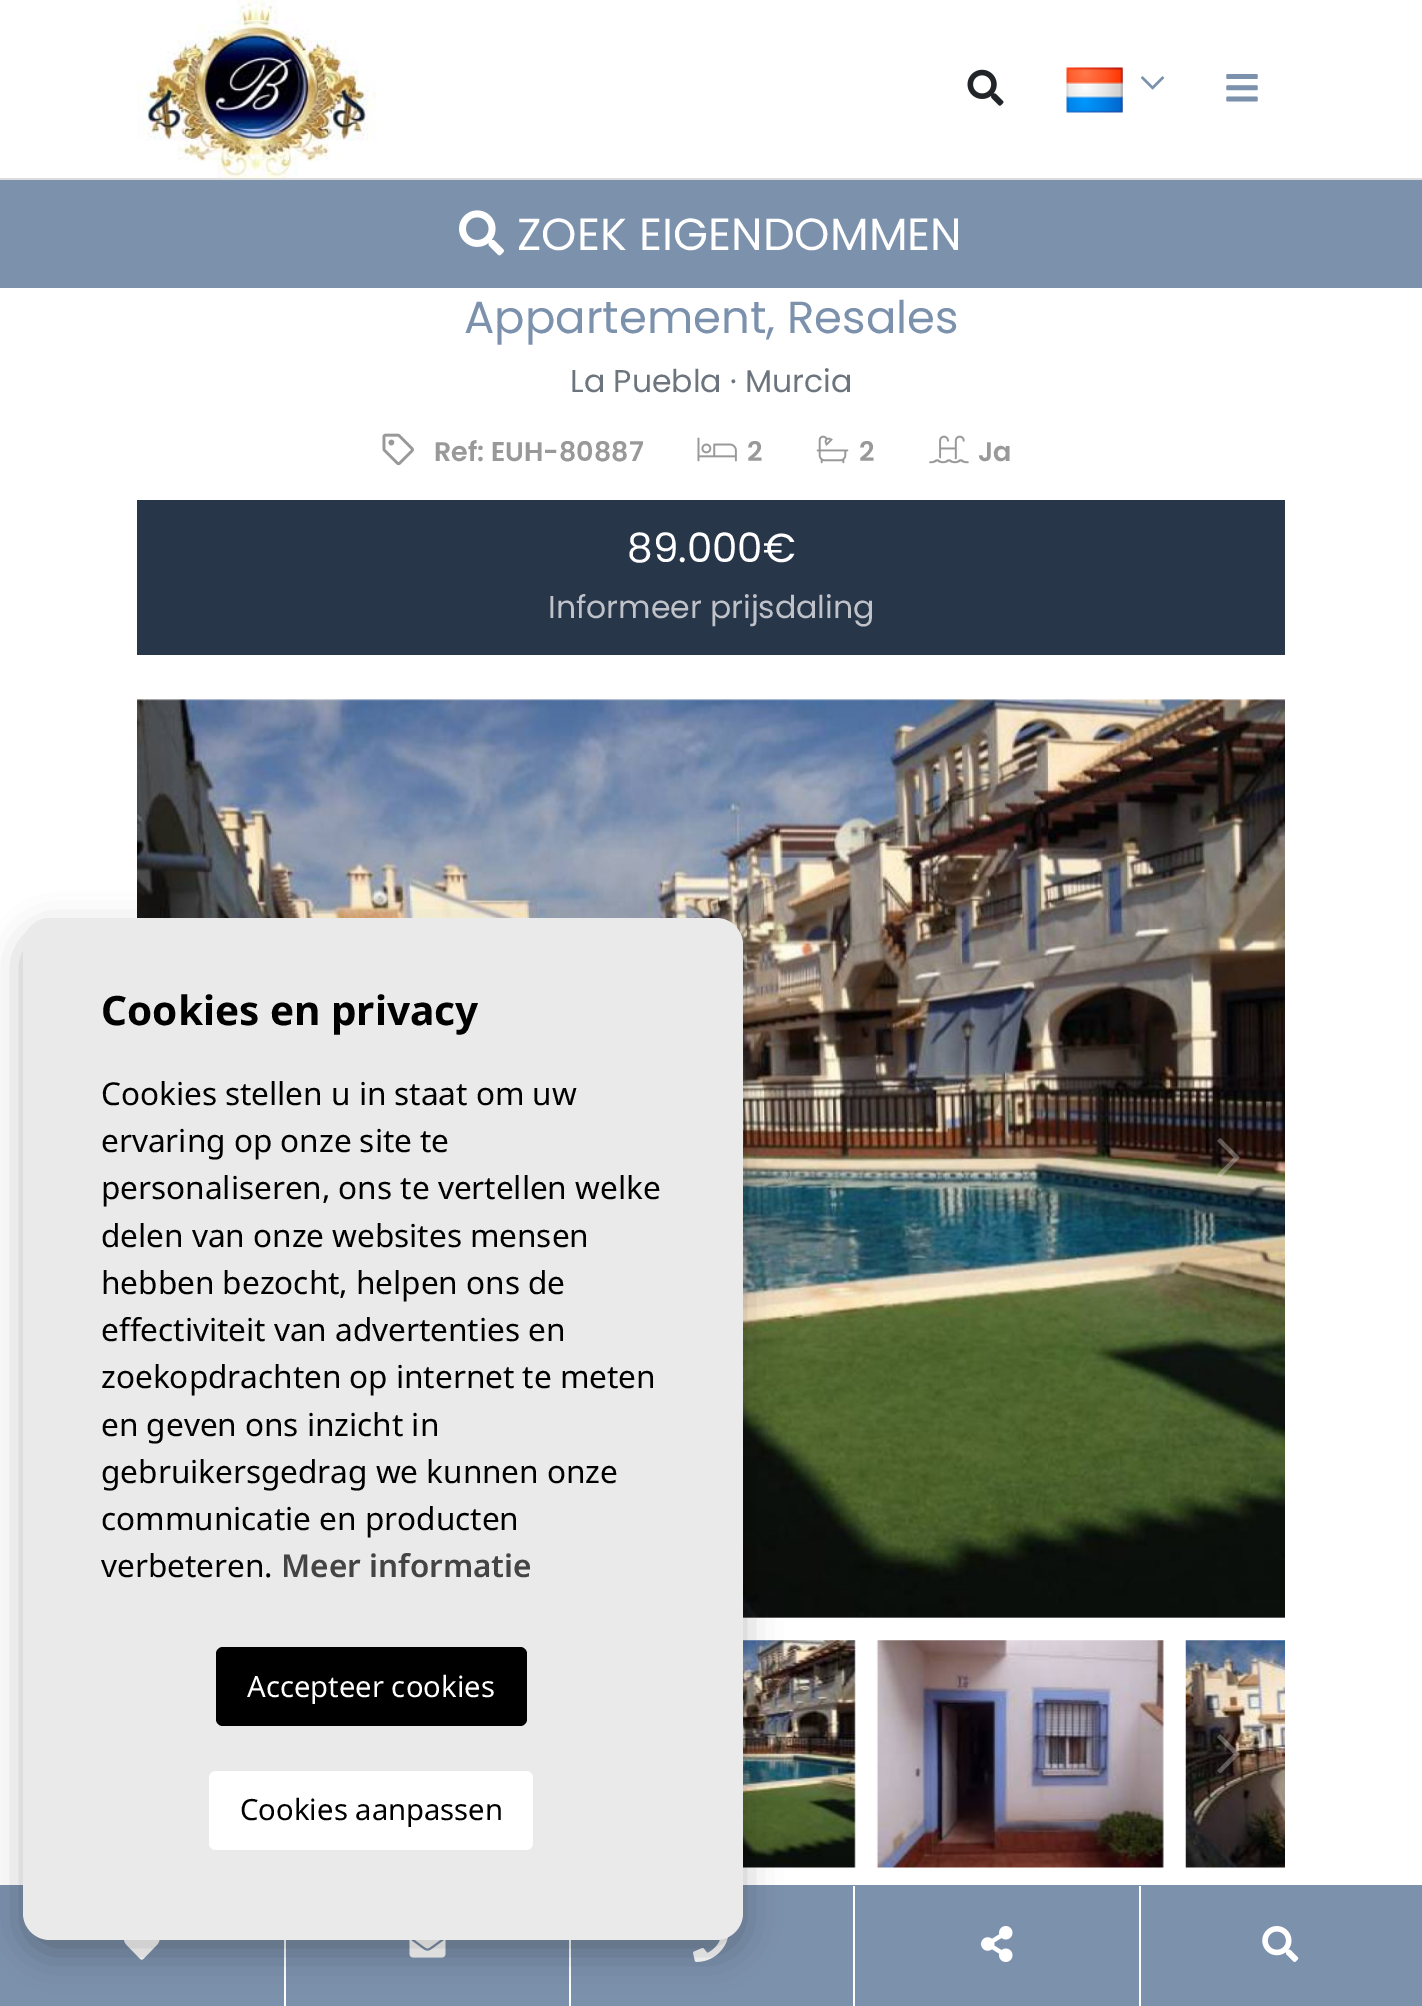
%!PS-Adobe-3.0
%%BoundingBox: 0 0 1422 2006
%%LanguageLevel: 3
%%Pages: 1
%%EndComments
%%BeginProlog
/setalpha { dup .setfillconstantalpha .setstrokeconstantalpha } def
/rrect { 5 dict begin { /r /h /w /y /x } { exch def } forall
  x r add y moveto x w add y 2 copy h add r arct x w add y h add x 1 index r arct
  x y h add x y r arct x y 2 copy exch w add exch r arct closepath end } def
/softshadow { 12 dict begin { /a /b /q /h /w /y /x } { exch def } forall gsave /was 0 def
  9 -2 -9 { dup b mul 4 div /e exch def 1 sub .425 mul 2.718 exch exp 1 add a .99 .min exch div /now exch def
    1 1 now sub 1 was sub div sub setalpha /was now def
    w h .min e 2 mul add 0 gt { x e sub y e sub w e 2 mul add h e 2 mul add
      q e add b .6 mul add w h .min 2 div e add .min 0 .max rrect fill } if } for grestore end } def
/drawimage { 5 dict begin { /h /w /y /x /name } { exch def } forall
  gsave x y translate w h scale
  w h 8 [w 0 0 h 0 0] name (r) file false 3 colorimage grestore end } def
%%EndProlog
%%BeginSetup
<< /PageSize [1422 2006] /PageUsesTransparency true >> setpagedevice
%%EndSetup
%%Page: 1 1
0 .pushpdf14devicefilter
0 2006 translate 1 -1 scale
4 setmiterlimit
1 setgray
0 0 1422 2006 rectfill
0.867 setgray
0 178 1422 2 rectfill
(images/1.raw) 137 0 239 178 drawimage
(images/2.raw) 967 69 37 37 drawimage
(images/3.raw) 1066 67 57 46 drawimage
(images/4.raw) 1141 76 24 14 drawimage
(images/5.raw) 1226 74 32 28 drawimage
0.486 0.569 0.675 setrgbcolor
0 180 1422 108 rectfill
(images/6.raw) 459 210 45 46 drawimage
(images/7.raw) 382 433 32 33 drawimage
(images/8.raw) 697 437 40 25 drawimage
(images/9.raw) 816 435 33 29 drawimage
(images/10.raw) 929 435 40 29 drawimage
0.157 0.212 0.29 setrgbcolor
137 500 1148 155 rectfill
(images/11.raw) 137 699 1148 919 drawimage
(images/12.raw) 1217 1138 23 39 drawimage
(images/13.raw) 743 1640 113 228 drawimage
(images/14.raw) 876 1640 288 228 drawimage
(images/15.raw) 1185 1640 100 228 drawimage
(images/16.raw) 1217 1734 23 40 drawimage
0.486 0.569 0.675 setrgbcolor
0 1885 1422 121 rectfill
(images/17.raw) 124 1940 36 20 drawimage
1 setgray
284 1940 2 66 rectfill
(images/18.raw) 409 1940 37 18 drawimage
569 1940 2 66 rectfill
(images/19.raw) 693 1936 36 26 drawimage
0 setgray
23 932 720 1021 27 18 0.25 softshadow
0.918 setgray
23 918 720 1022 27 rrect fill
0 setgray
216 1647 311 79 7 rrect fill
1 setgray
209 1771 324 79 7 rrect fill
853 1886 2 120 rectfill
(images/20.raw) 981 1926 32 36 drawimage
1139 1886 2 120 rectfill
(images/21.raw) 1262 1926 37 36 drawimage
/Poppins-Regular [45 0 0 -45 0 0] selectfont
517 250 moveto (ZOEK EIGENDOMMEN) show
0.486 0.569 0.675 setrgbcolor
464 333 moveto (Appartement, Resales) show
/Poppins-Regular [31.5 0 0 -31.5 0 0] selectfont
0.424 0.459 0.49 setrgbcolor
570 392 moveto (La Puebla · Murcia) show
/Poppins-SemiBold [27 0 0 -27 0 0] selectfont
0.6 setgray
434 461 moveto (Ref: EUH-80887) show
747 461 moveto (2) show
859 461 moveto (2) show
978 461 moveto (Ja) show
/Poppins-Regular [40.5 0 0 -40.5 0 0] selectfont
1 setgray
627 562 moveto (89.000€) show
/Poppins-Regular [31.5 0 0 -31.5 0 0] selectfont
0.749 0.765 0.788 setrgbcolor
548 618 moveto (Informeer prijsdaling) show
/NotoSans-Bold [40.5 0 0 -40.5 0 0] selectfont
0 setgray
101 1025 moveto (Cookies en privacy) show
/NotoSans-Regular [31.5 0 0 -31.5 0 0] selectfont
101 1105 moveto (Cookies stellen u in staat om uw) show
101 1152 moveto (ervaring op onze site te) show
101 1199 moveto (personaliseren, ons te vertellen welke) show
101 1247 moveto (delen van onze websites mensen) show
101 1294 moveto (hebben bezocht, helpen ons de) show
101 1341 moveto (effectiviteit van advertenties en) show
101 1388 moveto (zoekopdrachten op internet te meten) show
101 1436 moveto (en geven ons inzicht in) show
101 1483 moveto (gebruikersgedrag we kunnen onze) show
101 1530 moveto (communicatie en producten) show
101 1577 moveto (verbeteren.) show
/NotoSans-SemiBold [31.5 0 0 -31.5 0 0] selectfont
0.267 setgray
281 1577 moveto (Meer informatie) show
/NotoSans-Regular [29.25 0 0 -29.25 0 0] selectfont
1 setgray
247 1697 moveto (Accepteer cookies) show
0 setgray
240 1820 moveto (Cookies aanpassen) show
.poppdf14devicefilter showpage
%%EOF
